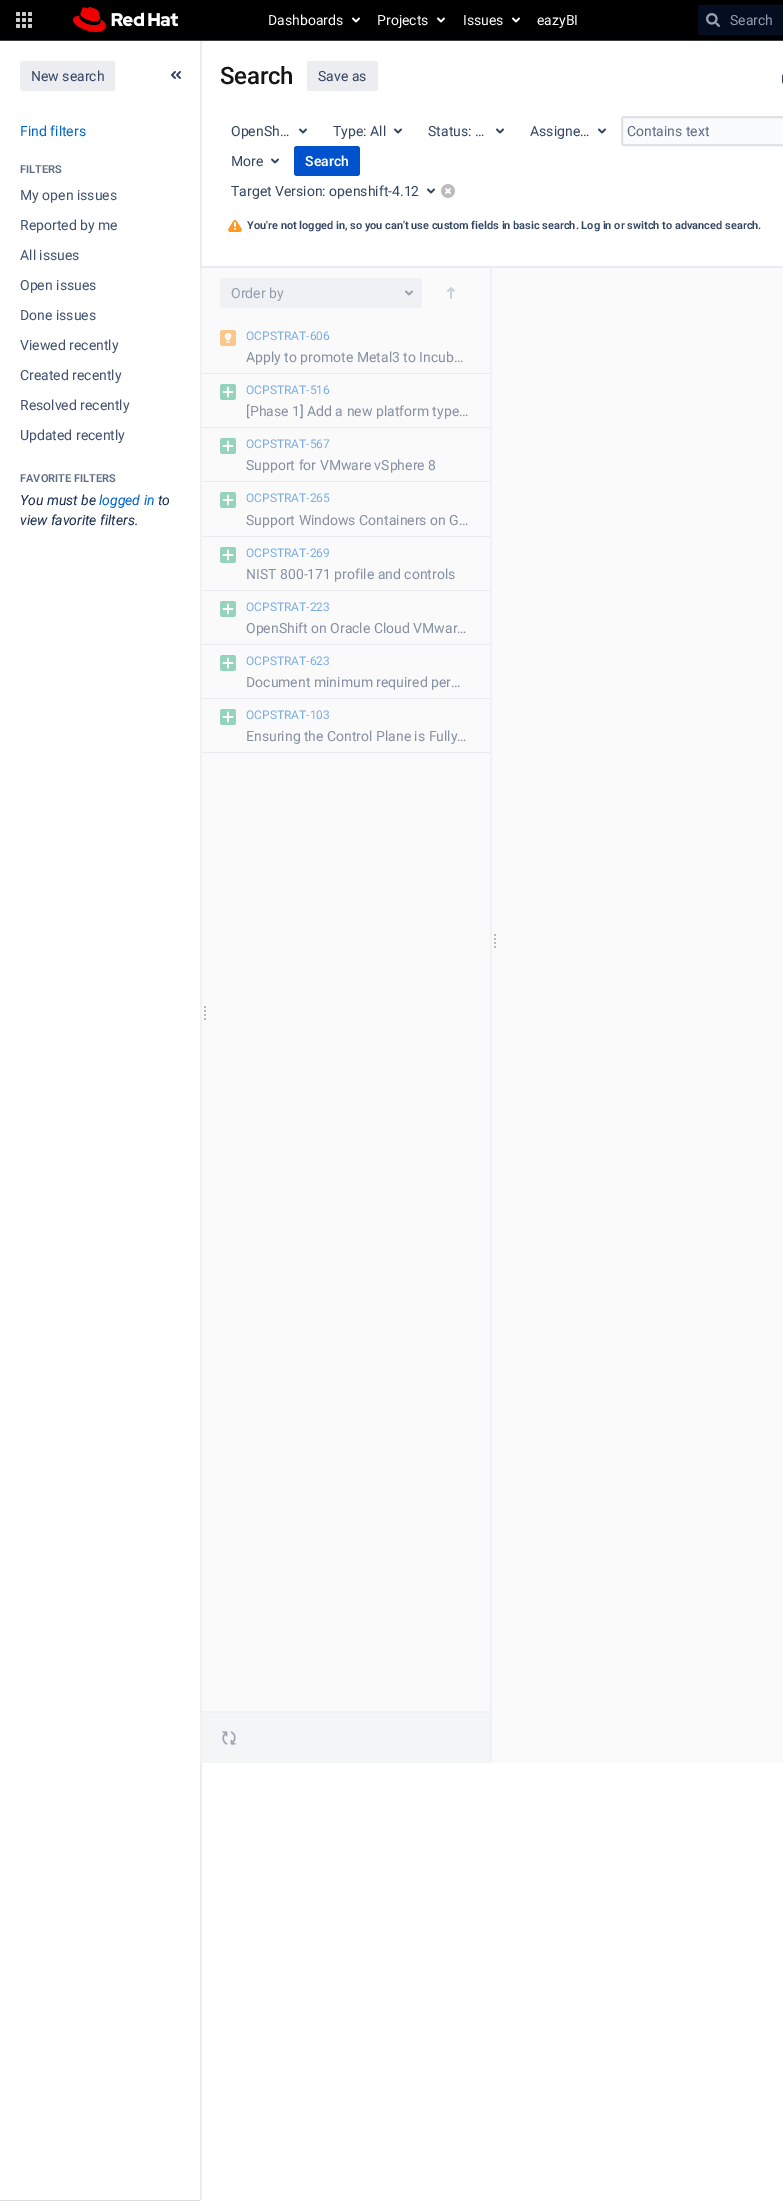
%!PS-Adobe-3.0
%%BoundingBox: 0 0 783 2201
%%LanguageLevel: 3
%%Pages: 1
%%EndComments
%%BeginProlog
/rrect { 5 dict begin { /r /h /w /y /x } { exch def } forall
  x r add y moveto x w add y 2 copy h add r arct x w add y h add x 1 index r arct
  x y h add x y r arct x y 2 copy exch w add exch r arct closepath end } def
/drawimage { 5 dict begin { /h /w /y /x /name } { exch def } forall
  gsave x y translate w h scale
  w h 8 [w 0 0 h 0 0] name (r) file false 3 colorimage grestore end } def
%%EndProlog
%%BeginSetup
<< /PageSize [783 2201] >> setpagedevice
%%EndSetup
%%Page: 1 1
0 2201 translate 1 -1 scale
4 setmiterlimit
1 setgray
0 0 783 2201 rectfill
0 setgray
0 0 783 40 rectfill
0.235 0.247 0.259 setrgbcolor
0 40 783 1 rectfill
(images/1.raw) 16 12 16 16 drawimage
(images/2.raw) 73 7 105 25 drawimage
(images/3.raw) 352 17 8 6 drawimage
(images/3.raw) 437 17 8 6 drawimage
(images/3.raw) 512 17 8 6 drawimage
0.016 0.055 0.125 setrgbcolor
698 5 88 30 3 rrect fill
(images/4.raw) 706 13 14 14 drawimage
0.98 0.98 0.984 setrgbcolor
202 268 581 1495 rectfill
0.867 setgray
0 2200 200 1 rectfill
0.922 0.929 0.941 setrgbcolor
20 61 95 30 3 rrect fill
(images/5.raw) 171 71 10 8 drawimage
0.922 0.925 0.941 setrgbcolor
200 266 583 2 rectfill
0.918 0.922 0.933 setrgbcolor
200 373 290 1 rectfill
200 427 290 1 rectfill
200 481 290 1 rectfill
200 536 290 1 rectfill
200 590 290 1 rectfill
200 644 290 1 rectfill
200 698 290 1 rectfill
200 752 290 1 rectfill
0.941 0.945 0.957 setrgbcolor
200 1711 290 2 rectfill
0.922 0.925 0.941 setrgbcolor
200 41 2 2159 rectfill
0.941 0.945 0.957 setrgbcolor
200 268 2 1495 rectfill
(images/6.raw) 204 1006 2 14 drawimage
0.922 0.929 0.941 setrgbcolor
307 61 71 30 3 rrect fill
(images/7.raw) 782 74 1 10 drawimage
(images/8.raw) 299 128 8 6 drawimage
(images/8.raw) 394 128 8 6 drawimage
(images/8.raw) 496 128 8 6 drawimage
(images/8.raw) 598 128 8 6 drawimage
0.98 0.984 0.988 setrgbcolor
622 117 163 28 2 rrect gsave fill grestore
0.875 0.882 0.902 setrgbcolor
2 setlinewidth
stroke
(images/8.raw) 271 158 8 6 drawimage
0 0.322 0.8 setrgbcolor
294 146 66 30 3 rrect fill
(images/8.raw) 427 188 8 6 drawimage
(images/9.raw) 441 184 14 14 drawimage
(images/10.raw) 228 220 14 12 drawimage
0.941 0.945 0.957 setrgbcolor
220 278 202 30 3 rrect fill
(images/11.raw) 405 290 8 6 drawimage
(images/12.raw) 447 287 8 12 drawimage
(images/13.raw) 220 330 16 16 drawimage
(images/14.raw) 220 384 16 16 drawimage
(images/14.raw) 220 438 16 16 drawimage
(images/14.raw) 220 492 16 16 drawimage
(images/15.raw) 220 547 16 16 drawimage
(images/14.raw) 220 601 16 16 drawimage
(images/14.raw) 220 655 16 16 drawimage
(images/14.raw) 220 709 16 16 drawimage
0.957 0.961 0.969 setrgbcolor
202 1713 288 50 rectfill
(images/16.raw) 222 1731 14 14 drawimage
0.941 0.945 0.957 setrgbcolor
490 268 2 1495 rectfill
(images/6.raw) 494 934 2 14 drawimage
/Roboto-Regular [14 0 0 -14 0 0] selectfont
1 setgray
268 25 moveto (Dashboards) show
377 25 moveto (Projects) show
463 25 moveto (Issues) show
537 25 moveto (eazyBI) show
0.58 0.616 0.678 setrgbcolor
730 25 moveto (Search) show
0.204 0.271 0.388 setrgbcolor
31 81 moveto (New search) show
0 0.4 0.8 setrgbcolor
20 136 moveto (Find filters) show
/Roboto-SemiBold [11 0 0 -11 0 0] selectfont
0.369 0.424 0.518 setrgbcolor
20 173 moveto (FILTERS) show
/Roboto-Regular [14 0 0 -14 0 0] selectfont
0.259 0.322 0.431 setrgbcolor
20 200 moveto (My open issues) show
20 230 moveto (Reported by me) show
20 260 moveto (All issues) show
20 290 moveto (Open issues) show
20 320 moveto (Done issues) show
20 350 moveto (Viewed recently) show
20 380 moveto (Created recently) show
20 410 moveto (Resolved recently) show
20 440 moveto (Updated recently) show
/Roboto-SemiBold [11 0 0 -11 0 0] selectfont
0.369 0.424 0.518 setrgbcolor
20 482 moveto (FAVORITE FILTERS) show
/Roboto-Italic [14 0 0 -14 0 0] selectfont
0.09 0.169 0.302 setrgbcolor
20 505 moveto (You must be) show
0 0.4 0.8 setrgbcolor
99 505 moveto (logged in) show
0.09 0.169 0.302 setrgbcolor
158 505 moveto (to) show
20 525 moveto (view favorite filters.) show
/Roboto-Medium [24 0 0 -24 0 0] selectfont
0.082 setgray
220 84 moveto -0.25 0 (Search) ashow
/Roboto-Regular [14 0 0 -14 0 0] selectfont
0.204 0.271 0.388 setrgbcolor
318 81 moveto (Save as) show
231 136 moveto (OpenSh…) show
333 136 moveto (Type: All) show
428 136 moveto (Status: …) show
530 136 moveto (Assigne…) show
0.369 0.424 0.518 setrgbcolor
627 136 moveto (Contains text) show
0.204 0.271 0.388 setrgbcolor
231 166 moveto (More) show
/Roboto-SemiBold [14 0 0 -14 0 0] selectfont
1 setgray
305 166 moveto (Search) show
/Roboto-Regular [14 0 0 -14 0 0] selectfont
0.204 0.271 0.388 setrgbcolor
231 196 moveto (Target Version: openshift-4.12) show
/Roboto-SemiBold [11 0 0 -11 0 0] selectfont
247 229 moveto (You're not logged in, so you can't use custom fields in basic search. Log in or switch to advanced search.) show
/Roboto-Regular [14 0 0 -14 0 0] selectfont
0.58 0.616 0.678 setrgbcolor
231 298 moveto (Order by) show
/Roboto-Regular [12 0 0 -12 0 0] selectfont
0.478 0.682 0.886 setrgbcolor
246 340 moveto (OCPSTRAT-606) show
/Roboto-Regular [14 0 0 -14 0 0] selectfont
0.525 0.565 0.635 setrgbcolor
246 362 moveto (Apply to promote Metal3 to Incub…) show
/Roboto-Regular [12 0 0 -12 0 0] selectfont
0.478 0.682 0.886 setrgbcolor
246 394 moveto (OCPSTRAT-516) show
/Roboto-Regular [14 0 0 -14 0 0] selectfont
0.525 0.565 0.635 setrgbcolor
246 416 moveto ([Phase 1] Add a new platform type…) show
/Roboto-Regular [12 0 0 -12 0 0] selectfont
0.478 0.682 0.886 setrgbcolor
246 448 moveto (OCPSTRAT-567) show
/Roboto-Regular [14 0 0 -14 0 0] selectfont
0.525 0.565 0.635 setrgbcolor
246 470 moveto (Support for VMware vSphere 8) show
/Roboto-Regular [12 0 0 -12 0 0] selectfont
0.478 0.682 0.886 setrgbcolor
246 502 moveto (OCPSTRAT-265) show
/Roboto-Regular [14 0 0 -14 0 0] selectfont
0.525 0.565 0.635 setrgbcolor
246 525 moveto (Support Windows Containers on G…) show
/Roboto-Regular [12 0 0 -12 0 0] selectfont
0.478 0.682 0.886 setrgbcolor
246 557 moveto (OCPSTRAT-269) show
/Roboto-Regular [14 0 0 -14 0 0] selectfont
0.525 0.565 0.635 setrgbcolor
246 579 moveto (NIST 800-171 profile and controls) show
/Roboto-Regular [12 0 0 -12 0 0] selectfont
0.478 0.682 0.886 setrgbcolor
246 611 moveto (OCPSTRAT-223) show
/Roboto-Regular [14 0 0 -14 0 0] selectfont
0.525 0.565 0.635 setrgbcolor
246 633 moveto (OpenShift on Oracle Cloud VMwar…) show
/Roboto-Regular [12 0 0 -12 0 0] selectfont
0.478 0.682 0.886 setrgbcolor
246 665 moveto (OCPSTRAT-623) show
/Roboto-Regular [14 0 0 -14 0 0] selectfont
0.525 0.565 0.635 setrgbcolor
246 687 moveto (Document minimum required per…) show
/Roboto-Regular [12 0 0 -12 0 0] selectfont
0.478 0.682 0.886 setrgbcolor
246 719 moveto (OCPSTRAT-103) show
/Roboto-Regular [14 0 0 -14 0 0] selectfont
0.525 0.565 0.635 setrgbcolor
246 741 moveto (Ensuring the Control Plane is Fully…) show
showpage
%%EOF
